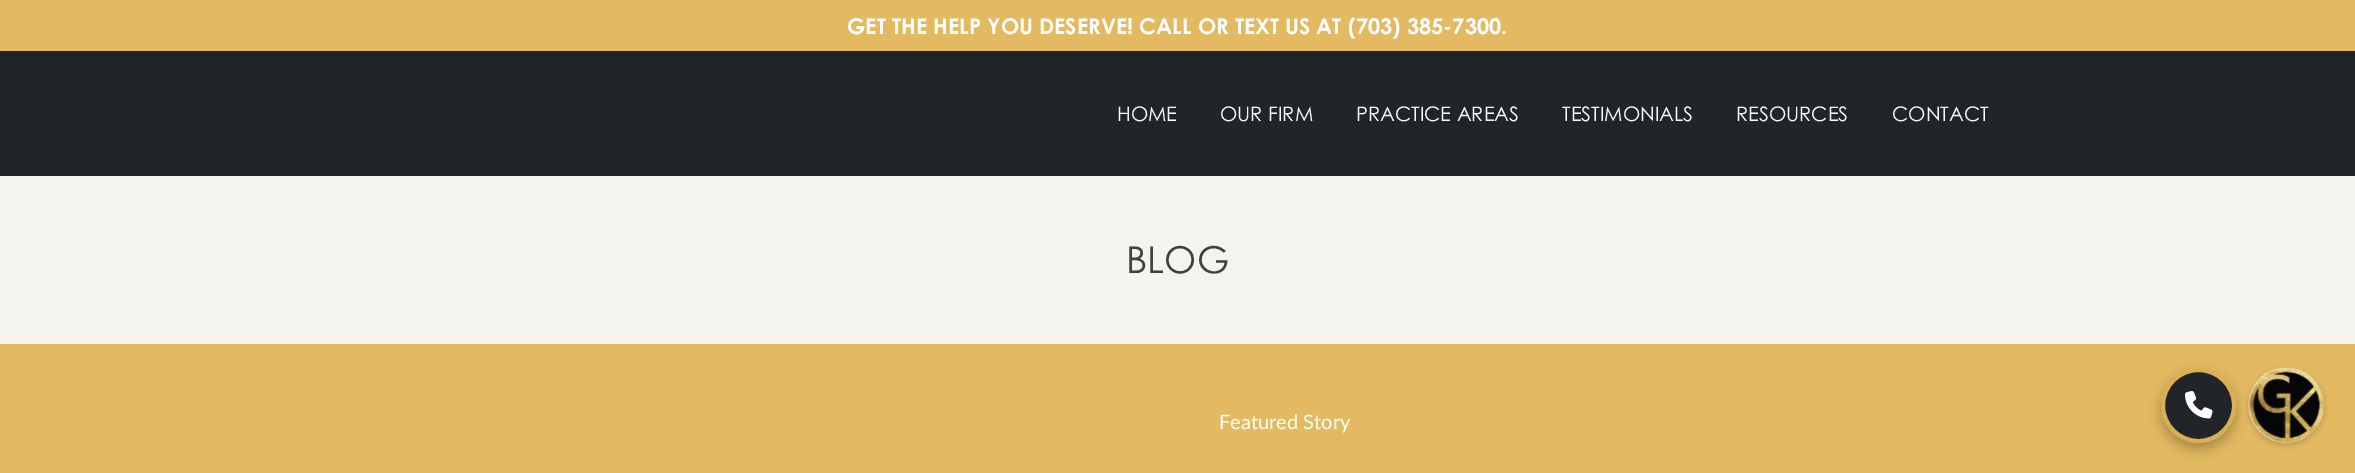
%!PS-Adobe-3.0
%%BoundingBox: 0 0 2355 473
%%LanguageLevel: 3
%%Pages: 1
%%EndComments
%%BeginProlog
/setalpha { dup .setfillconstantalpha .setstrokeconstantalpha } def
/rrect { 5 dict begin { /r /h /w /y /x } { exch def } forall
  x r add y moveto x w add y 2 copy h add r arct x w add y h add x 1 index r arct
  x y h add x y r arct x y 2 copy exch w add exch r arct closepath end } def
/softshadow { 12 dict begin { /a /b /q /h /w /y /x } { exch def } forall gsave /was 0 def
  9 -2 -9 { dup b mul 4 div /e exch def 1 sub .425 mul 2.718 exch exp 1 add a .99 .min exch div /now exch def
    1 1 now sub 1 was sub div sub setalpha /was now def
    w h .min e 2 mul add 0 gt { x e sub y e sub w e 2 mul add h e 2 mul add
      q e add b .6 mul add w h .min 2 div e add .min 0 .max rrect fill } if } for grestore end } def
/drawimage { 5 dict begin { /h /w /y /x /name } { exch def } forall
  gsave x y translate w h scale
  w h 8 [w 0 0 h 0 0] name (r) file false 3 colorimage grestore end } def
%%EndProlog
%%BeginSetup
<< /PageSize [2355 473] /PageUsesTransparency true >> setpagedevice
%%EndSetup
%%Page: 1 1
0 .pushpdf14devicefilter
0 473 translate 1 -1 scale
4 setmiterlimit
0.957 0.953 0.929 setrgbcolor
0 0 2355 473 rectfill
0.89 0.725 0.38 setrgbcolor
0 0 2355 51 rectfill
0.129 0.145 0.161 setrgbcolor
0 51 2355 125 rectfill
0.89 0.725 0.38 setrgbcolor
0 344 2355 129 rectfill
0 setgray
2161 374 75 75 37.5 6 0.25 softshadow
0.129 0.145 0.161 setrgbcolor
newpath 2198.5 405.5 35.5 0 360 arc closepath gsave fill grestore
0.859 0.686 0.333 setrgbcolor
4 setlinewidth
stroke
(images/1.raw) 2185 391 28 28 drawimage
(images/2.raw) 2245 366 83 83 drawimage
/CenturyGothic-Bold [21.75 0 0 -21.75 0 0] selectfont
1 setgray
847 34 moveto (GET THE HELP YOU DESERVE! CALL OR TEXT US AT \(703\) 385-7300.) show
/CenturyGothic-Regular [20 0 0 -20 0 0] selectfont
1117 121 moveto (HOME) show
1220 121 moveto (OUR FIRM) show
1356 121 moveto (PRACTICE AREAS) show
1562 121 moveto (TESTIMONIALS) show
1736 121 moveto (RESOURCES) show
1892 121 moveto (CONTACT) show
/CenturyGothic-Regular [37 0 0 -37 0 0] selectfont
0.251 setgray
1126 273 moveto (BLOG) show
/Lato-Regular [20 0 0 -20 0 0] selectfont
1 setgray
1219 429 moveto (Featured Story) show
.poppdf14devicefilter showpage
%%EOF
